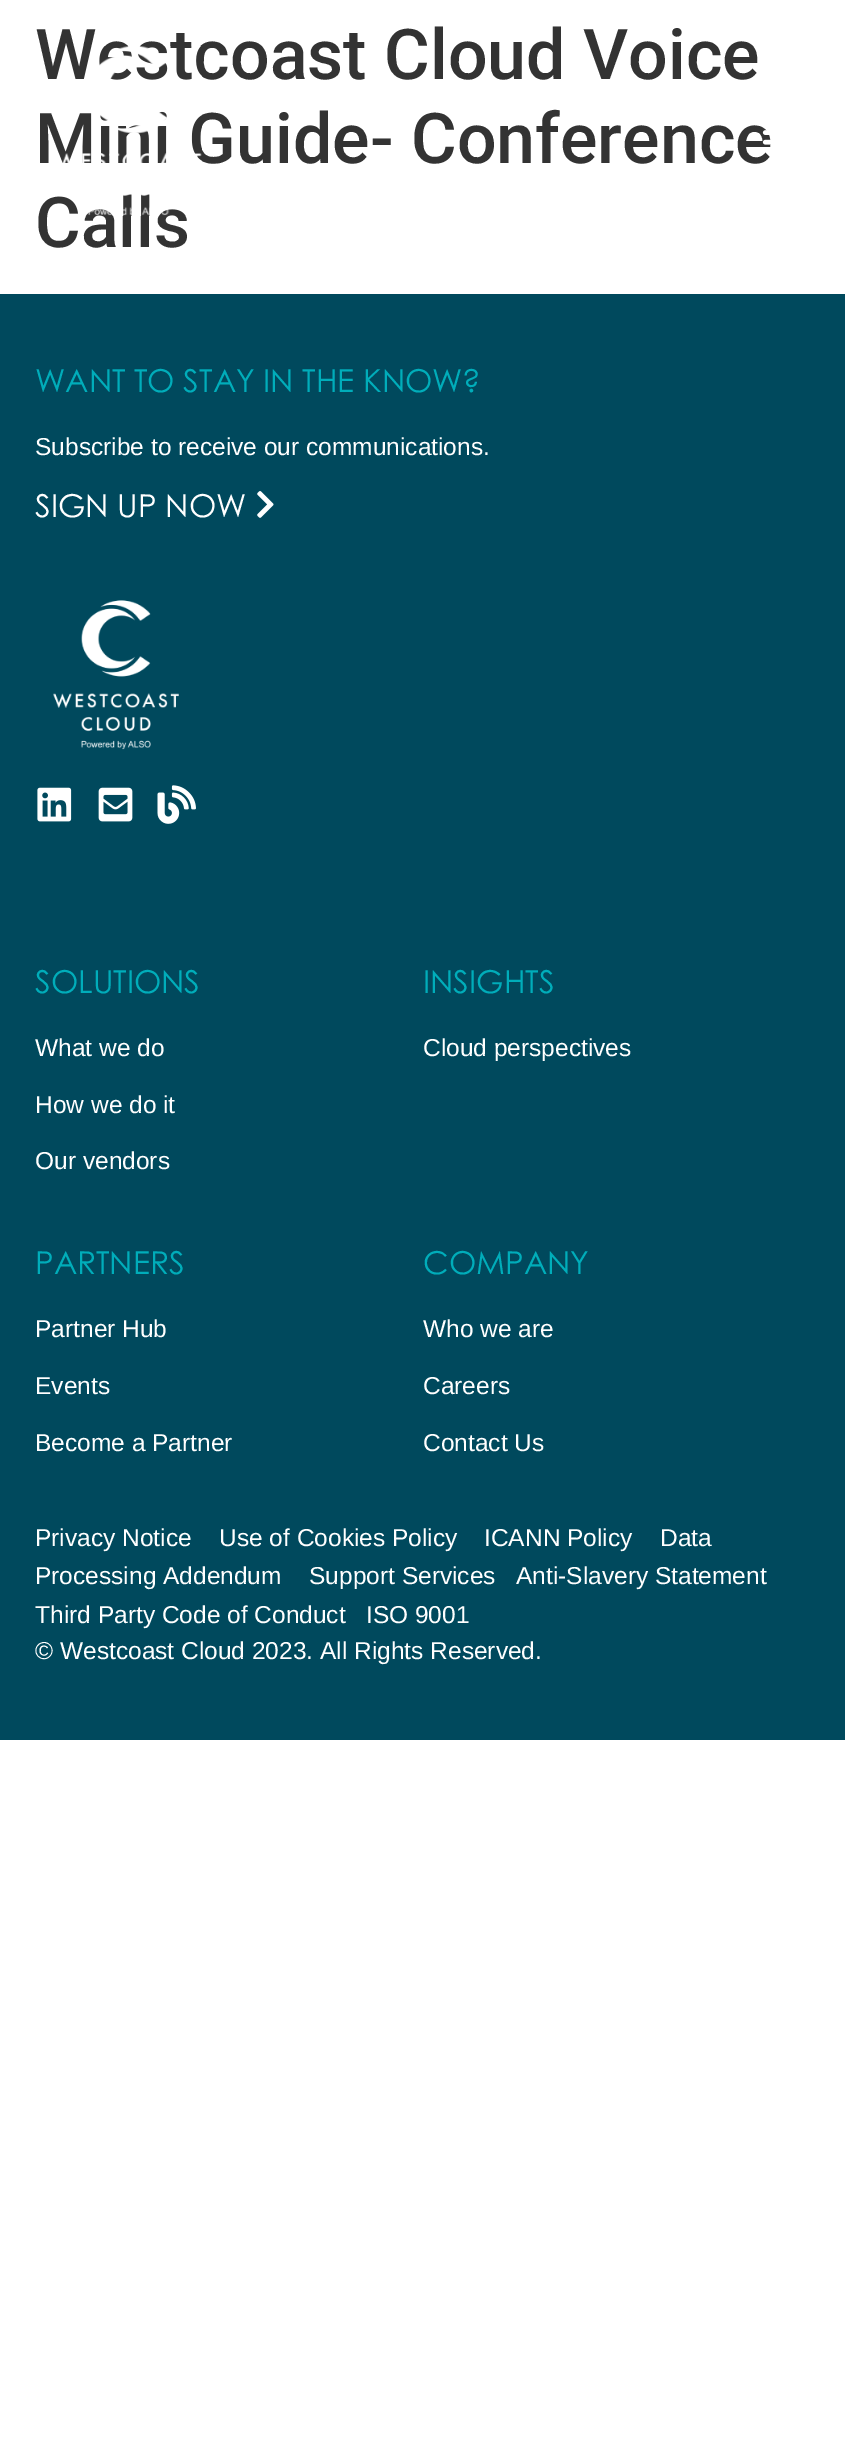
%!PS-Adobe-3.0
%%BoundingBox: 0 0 845 2444
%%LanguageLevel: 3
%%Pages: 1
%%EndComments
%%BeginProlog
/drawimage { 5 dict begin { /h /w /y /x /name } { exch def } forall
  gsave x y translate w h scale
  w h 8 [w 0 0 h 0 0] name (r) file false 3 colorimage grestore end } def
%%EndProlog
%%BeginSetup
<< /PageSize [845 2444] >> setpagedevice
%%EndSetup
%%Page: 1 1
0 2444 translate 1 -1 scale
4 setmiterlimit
1 setgray
0 0 845 2444 rectfill
0 0.286 0.365 setrgbcolor
0 294 845 1446 rectfill
(images/3.raw) 257 491 17 27 drawimage
(images/4.raw) 53 600 126 150 drawimage
(images/5.raw) 37 787 35 35 drawimage
(images/6.raw) 98 787 35 35 drawimage
(images/7.raw) 157 785 39 39 drawimage
/Roboto-Medium [70 0 0 -70 0 0] selectfont
0.2 setgray
35 79 moveto (Westcoast Cloud Voice) show
35 163 moveto (Mini Guide- Conference) show
35 247 moveto (Calls) show
(images/1.raw) 58 46 144 170 drawimage
(images/2.raw) 762 130 9 15 drawimage
/CenturyGothic-Regular [31.5 0 0 -31.5 0 0] selectfont
0 0.678 0.729 setrgbcolor
35 392 moveto (WANT TO STAY IN THE KNOW?) show
/LiberationSans-Regular [24.5 0 0 -24.5 0 0] selectfont
1 setgray
35 455 moveto (Subscribe to receive our communications.) show
/CenturyGothic-Regular [31.5 0 0 -31.5 0 0] selectfont
35 517 moveto (SIGN UP NOW) show
0 0.678 0.729 setrgbcolor
35 993 moveto (SOLUTIONS) show
/LiberationSans-Regular [24.5 0 0 -24.5 0 0] selectfont
1 setgray
35 1056 moveto (What we do) show
35 1113 moveto (How we do it) show
35 1169 moveto (Our vendors) show
/CenturyGothic-Regular [31.5 0 0 -31.5 0 0] selectfont
0 0.678 0.729 setrgbcolor
423 993 moveto (INSIGHTS) show
/LiberationSans-Regular [24.5 0 0 -24.5 0 0] selectfont
1 setgray
423 1056 moveto (Cloud perspectives) show
/CenturyGothic-Regular [31.5 0 0 -31.5 0 0] selectfont
0 0.678 0.729 setrgbcolor
35 1274 moveto (PARTNERS) show
/LiberationSans-Regular [24.5 0 0 -24.5 0 0] selectfont
1 setgray
35 1337 moveto (Partner Hub) show
35 1394 moveto (Events) show
35 1451 moveto (Become a Partner) show
/CenturyGothic-Regular [31.5 0 0 -31.5 0 0] selectfont
0 0.678 0.729 setrgbcolor
423 1274 moveto (COMPANY) show
/LiberationSans-Regular [24.5 0 0 -24.5 0 0] selectfont
1 setgray
423 1337 moveto (Who we are) show
423 1394 moveto (Careers) show
423 1451 moveto (Contact Us) show
35 1546 moveto (Privacy Notice) show
219 1546 moveto (Use of Cookies Policy) show
484 1546 moveto (ICANN Policy) show
660 1546 moveto (Data) show
35 1584 moveto (Processing Addendum) show
309 1584 moveto (Support Services) show
516 1584 moveto (Anti-Slavery Statement) show
35 1623 moveto (Third Party Code of Conduct   ISO 9001) show
35 1659 moveto (© Westcoast Cloud 2023. All Rights Reserved.) show
showpage
%%EOF
